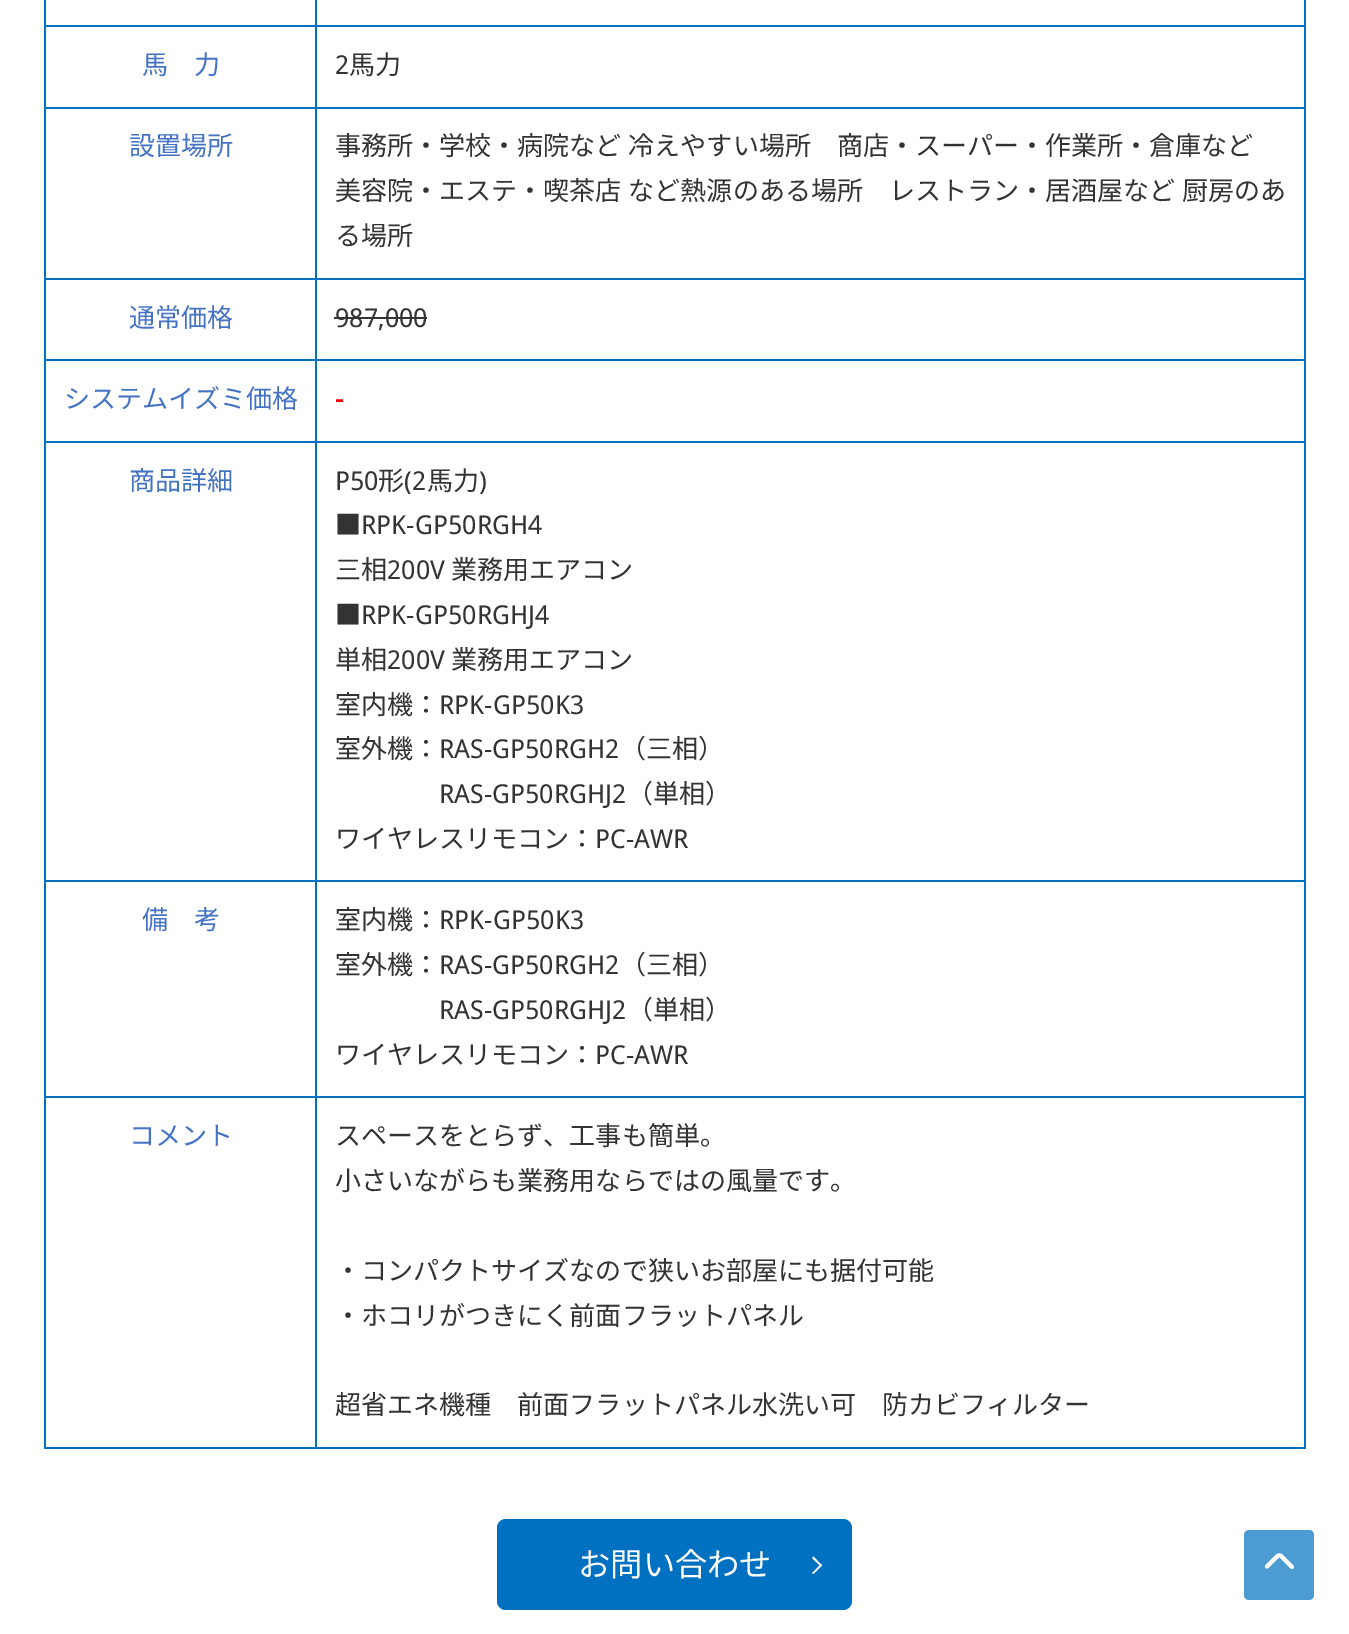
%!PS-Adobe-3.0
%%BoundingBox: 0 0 1349 1634
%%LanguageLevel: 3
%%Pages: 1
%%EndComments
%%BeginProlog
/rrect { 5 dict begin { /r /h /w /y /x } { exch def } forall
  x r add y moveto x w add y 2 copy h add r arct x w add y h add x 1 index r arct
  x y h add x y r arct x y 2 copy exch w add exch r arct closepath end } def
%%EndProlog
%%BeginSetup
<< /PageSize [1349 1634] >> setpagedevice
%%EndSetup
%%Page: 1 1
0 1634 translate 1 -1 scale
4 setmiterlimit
1 setgray
0 0 1349 1634 rectfill
0 0.439 0.753 setrgbcolor
1304 0 2 1449 rectfill
44 1447 1262 2 rectfill
44 0 2 1449 rectfill
315 25 991 2 rectfill
315 107 991 2 rectfill
315 278 991 2 rectfill
315 359 991 2 rectfill
315 441 991 2 rectfill
315 880 991 2 rectfill
315 1096 991 2 rectfill
315 1096 2 353 rectfill
44 1096 273 2 rectfill
315 880 2 217 rectfill
44 880 273 2 rectfill
315 441 2 441 rectfill
44 441 273 2 rectfill
315 359 2 84 rectfill
44 359 273 2 rectfill
315 278 2 83 rectfill
44 278 273 2 rectfill
315 107 2 173 rectfill
44 107 273 2 rectfill
315 25 2 84 rectfill
44 25 273 2 rectfill
315 0 2 26 rectfill
0.2 setgray
334 317 93 2 rectfill
0 0.439 0.753 setrgbcolor
497 1519 355 91 9 rrect fill
1 setgray
newpath 812 1558 moveto 813.5 1556.5 lineto 822 1565.5 lineto 821 1566.5 lineto closepath fill
newpath 812 1573 moveto 821 1564 lineto 822 1565.5 lineto 813.5 1574 lineto closepath fill
0.302 0.608 0.827 setrgbcolor
1244 1530 70 70 5 rrect fill
1 setgray
3.9 setlinewidth
1 setlinecap
2 setlinejoin
newpath 1292 1567 moveto 1281 1556 lineto 1280 1555 1278.5 1555 1277.5 1556 curveto 1267 1566.5 lineto stroke
/NotoSansJP-Thin [26.05 0 0 -26.05 0 0] selectfont
0.267 0.447 0.769 setrgbcolor
142 74 moveto (馬　力) show
/DroidSans-Regular [26.05 0 0 -26.05 0 0] selectfont
0.2 setgray
335 74 moveto (2) show
/NotoSansJP-Thin [26.05 0 0 -26.05 0 0] selectfont
349 74 moveto (馬力) show
0.267 0.447 0.769 setrgbcolor
129 155 moveto (設置場所) show
0.2 setgray
335 155 moveto 1 0 32 (事務所・学校・病院など 冷えやすい場所　商店・スーパー・作業所・倉庫など) widthshow
335 200 moveto 1 0 32 (美容院・エステ・喫茶店 など熱源のある場所　レストラン・居酒屋など 厨房のあ) widthshow
335 245 moveto (る場所) show
0.267 0.447 0.769 setrgbcolor
129 327 moveto (通常価格) show
/DroidSans-Regular [26.05 0 0 -26.05 0 0] selectfont
0.2 setgray
335 327 moveto (987,000) show
/NotoSansJP-Thin [26.05 0 0 -26.05 0 0] selectfont
0.267 0.447 0.769 setrgbcolor
64 408 moveto (システムイズミ価格) show
/DroidSans-Bold [26.05 0 0 -26.05 0 0] selectfont
0.988 0 0 setrgbcolor
335 408 moveto (-) show
/NotoSansJP-Thin [26.05 0 0 -26.05 0 0] selectfont
0.267 0.447 0.769 setrgbcolor
129 490 moveto (商品詳細) show
/DroidSans-Regular [26.05 0 0 -26.05 0 0] selectfont
0.2 setgray
335 490 moveto (P50) show
/NotoSansJP-Thin [26.05 0 0 -26.05 0 0] selectfont
378 490 moveto (形) show
/DroidSans-Regular [26.05 0 0 -26.05 0 0] selectfont
404 490 moveto (\(2) show
/NotoSansJP-Thin [26.05 0 0 -26.05 0 0] selectfont
427 490 moveto (馬力) show
/DroidSans-Regular [26.05 0 0 -26.05 0 0] selectfont
479 490 moveto (\)) show
/NotoSansJP-Thin [26.05 0 0 -26.05 0 0] selectfont
335 534 moveto (■) show
/DroidSans-Regular [26.05 0 0 -26.05 0 0] selectfont
361 534 moveto (RPK-GP50RGH4) show
/NotoSansJP-Thin [26.05 0 0 -26.05 0 0] selectfont
335 579 moveto (三相) show
/DroidSans-Regular [26.05 0 0 -26.05 0 0] selectfont
387 579 moveto (200V) show
/NotoSansJP-Thin [26.05 0 0 -26.05 0 0] selectfont
451 579 moveto (業務用エアコン) show
335 624 moveto (■) show
/DroidSans-Regular [26.05 0 0 -26.05 0 0] selectfont
361 624 moveto (RPK-GP50RGHJ4) show
/NotoSansJP-Thin [26.05 0 0 -26.05 0 0] selectfont
335 669 moveto (単相) show
/DroidSans-Regular [26.05 0 0 -26.05 0 0] selectfont
387 669 moveto (200V) show
/NotoSansJP-Thin [26.05 0 0 -26.05 0 0] selectfont
451 669 moveto (業務用エアコン) show
335 714 moveto (室内機：) show
/DroidSans-Regular [26.05 0 0 -26.05 0 0] selectfont
439 714 moveto (RPK-GP50K3) show
/NotoSansJP-Thin [26.05 0 0 -26.05 0 0] selectfont
335 758 moveto (室外機：) show
/DroidSans-Regular [26.05 0 0 -26.05 0 0] selectfont
439 758 moveto (RAS-GP50RGH2) show
/NotoSansJP-Thin [26.05 0 0 -26.05 0 0] selectfont
620 758 moveto (（三相）) show
/DroidSans-Regular [26.05 0 0 -26.05 0 0] selectfont
439 803 moveto (RAS-GP50RGHJ2) show
/NotoSansJP-Thin [26.05 0 0 -26.05 0 0] selectfont
627 803 moveto (（単相）) show
335 848 moveto (ワイヤレスリモコン：) show
/DroidSans-Regular [26.05 0 0 -26.05 0 0] selectfont
595 848 moveto (PC-AWR) show
/NotoSansJP-Thin [26.05 0 0 -26.05 0 0] selectfont
0.267 0.447 0.769 setrgbcolor
142 929 moveto (備　考) show
0.2 setgray
335 929 moveto (室内機：) show
/DroidSans-Regular [26.05 0 0 -26.05 0 0] selectfont
439 929 moveto (RPK-GP50K3) show
/NotoSansJP-Thin [26.05 0 0 -26.05 0 0] selectfont
335 974 moveto (室外機：) show
/DroidSans-Regular [26.05 0 0 -26.05 0 0] selectfont
439 974 moveto (RAS-GP50RGH2) show
/NotoSansJP-Thin [26.05 0 0 -26.05 0 0] selectfont
620 974 moveto (（三相）) show
/DroidSans-Regular [26.05 0 0 -26.05 0 0] selectfont
439 1019 moveto (RAS-GP50RGHJ2) show
/NotoSansJP-Thin [26.05 0 0 -26.05 0 0] selectfont
627 1019 moveto (（単相）) show
335 1064 moveto (ワイヤレスリモコン：) show
/DroidSans-Regular [26.05 0 0 -26.05 0 0] selectfont
595 1064 moveto (PC-AWR) show
/NotoSansJP-Thin [26.05 0 0 -26.05 0 0] selectfont
0.267 0.447 0.769 setrgbcolor
129 1145 moveto (コメント) show
0.2 setgray
335 1145 moveto (スペースをとらず、工事も簡単。) show
335 1190 moveto (小さいながらも業務用ならではの風量です。) show
335 1280 moveto (・コンパクトサイズなので狭いお部屋にも据付可能) show
335 1325 moveto (・ホコリがつきにく前面フラットパネル) show
335 1414 moveto (超省エネ機種　前面フラットパネル水洗い可　防カビフィルター) show
/NotoSansJP-Thin [32.25 0 0 -32.25 0 0] selectfont
1 setgray
578 1576 moveto (お問い合わせ) show
showpage
%%EOF
